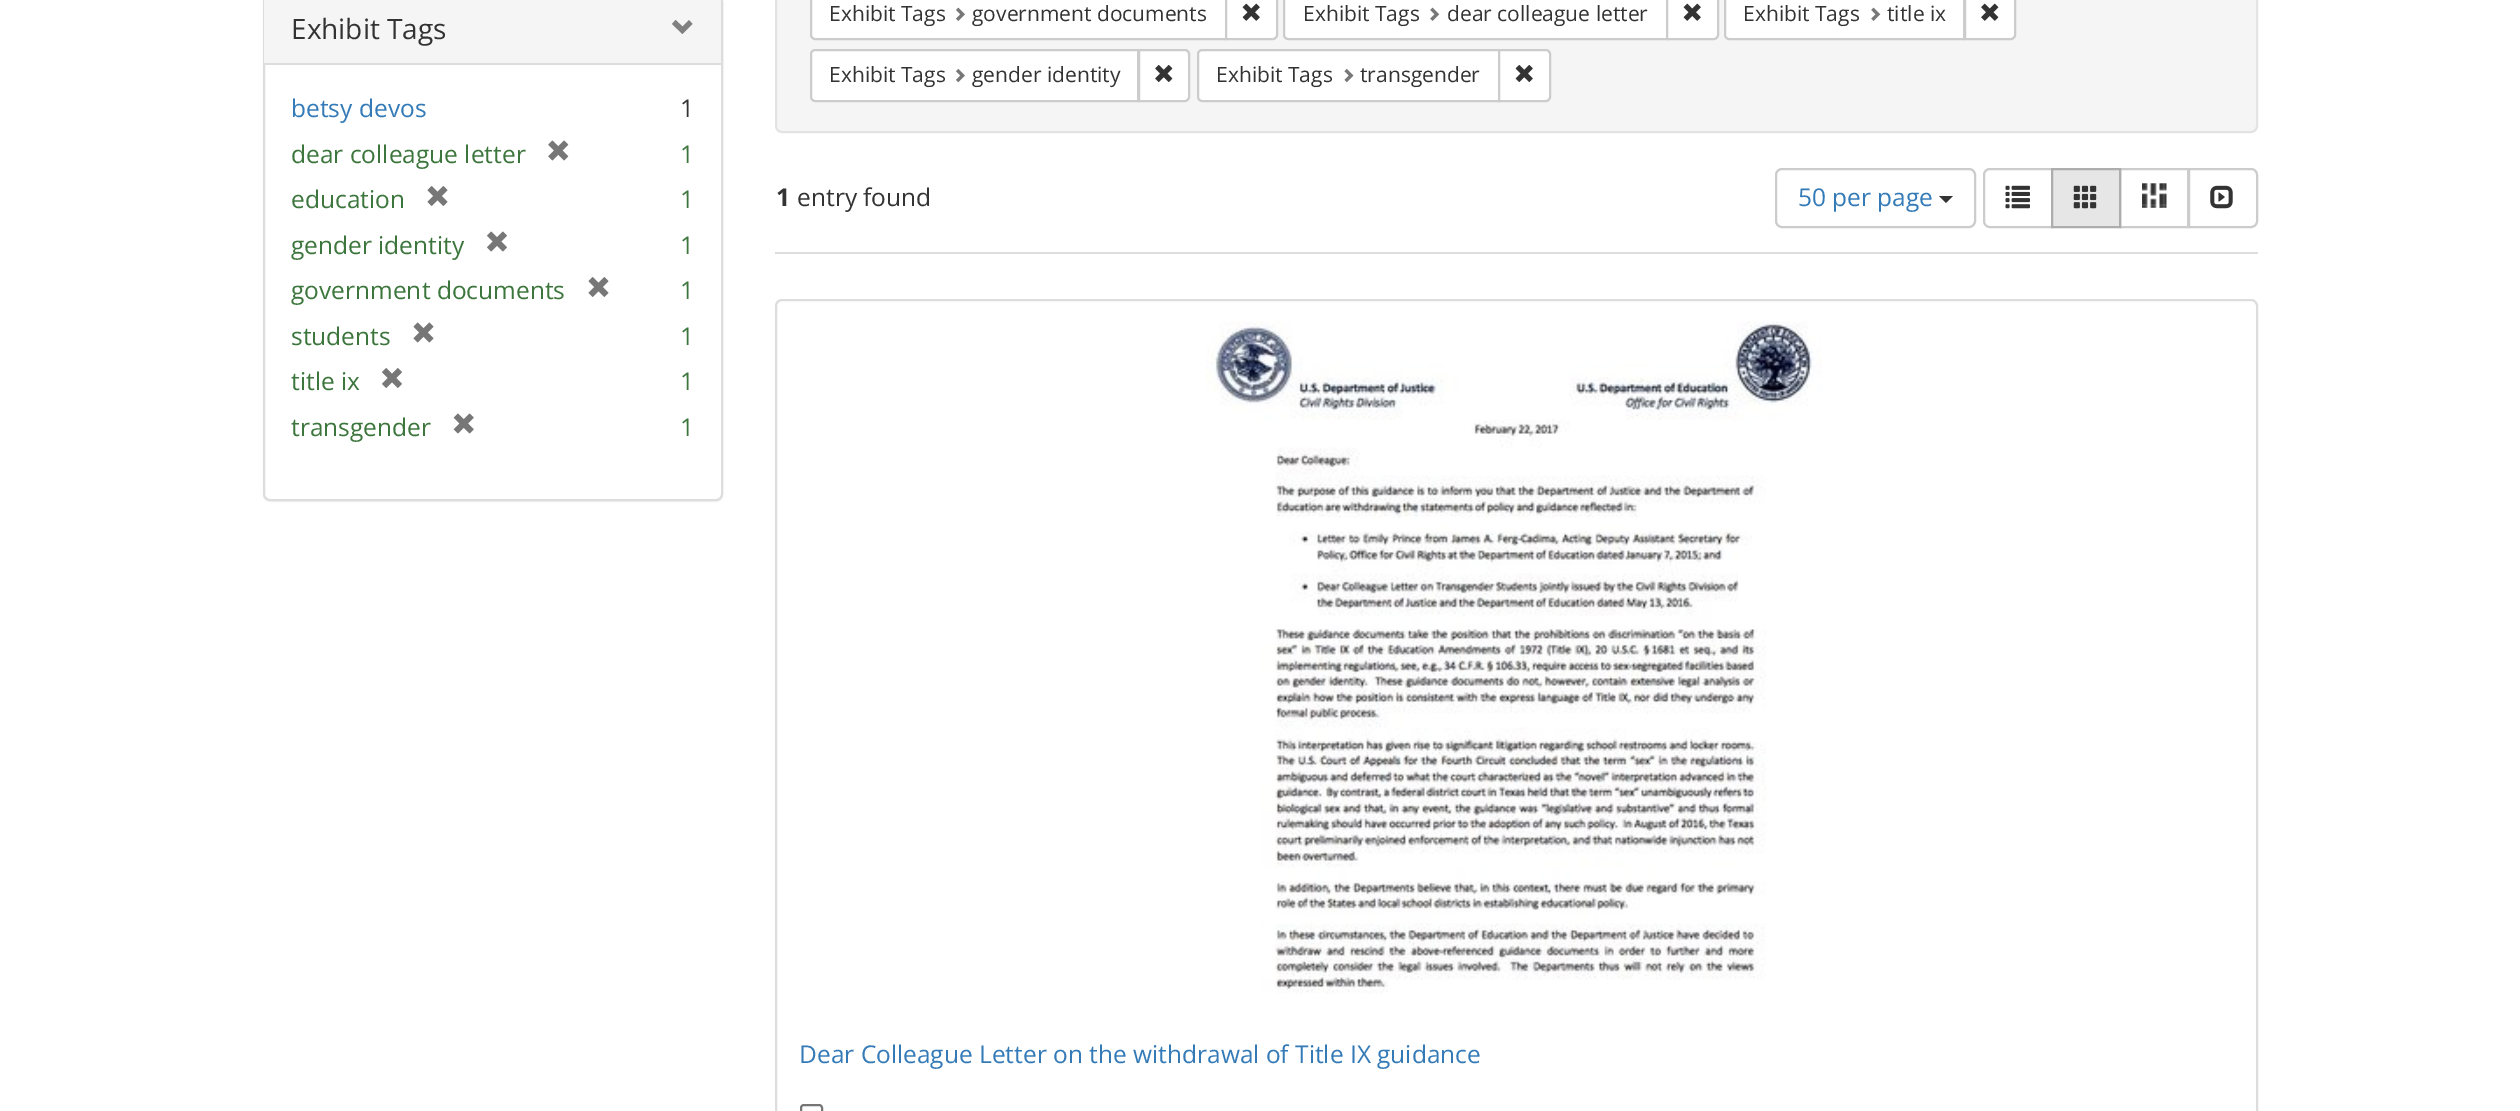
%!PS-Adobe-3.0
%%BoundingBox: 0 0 2520 1111
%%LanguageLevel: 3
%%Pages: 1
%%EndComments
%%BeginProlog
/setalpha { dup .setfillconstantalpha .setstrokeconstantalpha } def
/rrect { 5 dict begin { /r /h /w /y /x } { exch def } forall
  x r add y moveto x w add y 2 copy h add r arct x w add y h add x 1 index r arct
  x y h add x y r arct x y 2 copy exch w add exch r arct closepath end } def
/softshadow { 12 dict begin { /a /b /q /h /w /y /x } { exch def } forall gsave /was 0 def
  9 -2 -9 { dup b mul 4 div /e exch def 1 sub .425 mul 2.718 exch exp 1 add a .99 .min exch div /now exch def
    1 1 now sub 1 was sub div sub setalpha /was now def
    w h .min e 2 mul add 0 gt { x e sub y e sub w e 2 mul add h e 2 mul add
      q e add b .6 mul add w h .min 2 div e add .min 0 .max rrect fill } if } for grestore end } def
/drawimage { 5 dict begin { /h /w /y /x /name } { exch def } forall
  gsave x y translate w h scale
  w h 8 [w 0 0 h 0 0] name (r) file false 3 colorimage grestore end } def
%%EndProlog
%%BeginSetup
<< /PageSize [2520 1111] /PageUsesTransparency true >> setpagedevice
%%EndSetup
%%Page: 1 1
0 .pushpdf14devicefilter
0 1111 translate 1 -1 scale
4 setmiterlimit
1 setgray
0 0 2520 1111 rectfill
0 setgray
263 -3 460 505 7 1 0.05 softshadow
1 setgray
264 -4 458 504 6 rrect gsave fill grestore
0.867 setgray
2 setlinewidth
stroke
0.961 setgray
newpath 269 -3 moveto 716 -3 lineto 719 -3 721 -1 721 2 curveto 721 63 lineto 264 63 lineto 264 2 lineto 264 -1 266 -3 269 -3 curveto closepath fill
0.502 setgray
newpath 692.5 24 moveto 682.5 34 lineto 672 24 lineto 675.5 20 lineto 682.5 26.5 lineto 689 20 lineto closepath fill
0.867 setgray
264 63 457 2 rectfill
(images/1.raw) 548 140 21 21 drawimage
(images/2.raw) 427 186 21 20 drawimage
(images/3.raw) 487 231 20 21 drawimage
(images/2.raw) 588 277 21 20 drawimage
(images/4.raw) 413 322 21 21 drawimage
(images/5.raw) 382 368 20 20 drawimage
(images/6.raw) 453 413 21 21 drawimage
0.961 setgray
776 -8 1481 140 6 rrect gsave fill grestore
0.89 setgray
stroke
1 setgray
newpath 815 -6 moveto 1226 -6 lineto 1226 39 lineto 815 39 lineto 813 39 811 37 811 35 curveto 811 -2 lineto 811 -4 813 -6 815 -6 curveto closepath gsave fill grestore
0.8 setgray
stroke
(images/7.raw) 956 7 9 14 drawimage
1 setgray
newpath 1226 -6 moveto 1273 -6 lineto 1275 -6 1277 -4 1277 -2 curveto 1277 35 lineto 1277 37 1275 39 1273 39 curveto 1226 39 lineto closepath gsave fill grestore
0.8 setgray
stroke
(images/8.raw) 1242 3 18 18 drawimage
1 setgray
newpath 1288 -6 moveto 1667 -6 lineto 1667 39 lineto 1288 39 lineto 1286 39 1284 37 1284 35 curveto 1284 -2 lineto 1284 -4 1286 -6 1288 -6 curveto closepath gsave fill grestore
0.8 setgray
stroke
(images/9.raw) 1430 7 10 14 drawimage
1 setgray
newpath 1667 -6 moveto 1714 -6 lineto 1716 -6 1718 -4 1718 -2 curveto 1718 35 lineto 1718 37 1716 39 1714 39 curveto 1667 39 lineto closepath gsave fill grestore
0.8 setgray
stroke
(images/8.raw) 1683 3 18 18 drawimage
1 setgray
newpath 1729 -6 moveto 1964 -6 lineto 1964 39 lineto 1729 39 lineto 1727 39 1725 37 1725 35 curveto 1725 -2 lineto 1725 -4 1727 -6 1729 -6 curveto closepath gsave fill grestore
0.8 setgray
stroke
(images/9.raw) 1871 7 10 14 drawimage
1 setgray
newpath 1965 -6 moveto 2011 -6 lineto 2013 -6 2015 -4 2015 -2 curveto 2015 35 lineto 2015 37 2013 39 2011 39 curveto 1965 39 lineto closepath gsave fill grestore
0.8 setgray
stroke
(images/10.raw) 1981 3 18 18 drawimage
1 setgray
newpath 815 50 moveto 1138 50 lineto 1138 101 lineto 815 101 lineto 813 101 811 99 811 97 curveto 811 54 lineto 811 52 813 50 815 50 curveto closepath gsave fill grestore
0.8 setgray
stroke
(images/11.raw) 956 68 9 15 drawimage
1 setgray
newpath 1139 50 moveto 1185 50 lineto 1187 50 1189 52 1189 54 curveto 1189 97 lineto 1189 99 1187 101 1185 101 curveto 1139 101 lineto closepath gsave fill grestore
0.8 setgray
stroke
(images/12.raw) 1155 65 18 17 drawimage
1 setgray
newpath 1202 50 moveto 1499 50 lineto 1499 101 lineto 1202 101 lineto 1200 101 1198 99 1198 97 curveto 1198 54 lineto 1198 52 1200 50 1202 50 curveto closepath gsave fill grestore
0.8 setgray
stroke
(images/13.raw) 1344 68 10 15 drawimage
1 setgray
newpath 1499 50 moveto 1546 50 lineto 1548 50 1550 52 1550 54 curveto 1550 97 lineto 1550 99 1548 101 1546 101 curveto 1499 101 lineto closepath gsave fill grestore
0.8 setgray
stroke
(images/14.raw) 1515 65 18 17 drawimage
0.867 setgray
775 252 1483 2 rectfill
0.8 setgray
1776 169 199 58 6 rrect stroke
0.2 setgray
newpath 1939 196 moveto 1953 196 lineto 1946 203 lineto closepath fill
0.8 setgray
newpath 1990 169 moveto 2052 169 lineto 2052 227 lineto 1990 227 lineto 1986.5 227 1984 224.5 1984 221 curveto 1984 175 lineto 1984 171.5 1986.5 169 1990 169 curveto closepath stroke
(images/15.raw) 2005 185 25 24 drawimage
2120 169 68 58 rectstroke
0.902 setgray
newpath 2052 169 moveto 2120 169 lineto 2120 227 lineto 2052 227 lineto closepath gsave fill grestore
0.678 setgray
stroke
(images/16.raw) 2073 185 24 24 drawimage
(images/17.raw) 2142 183 25 25 drawimage
1 setgray
newpath 2189 169 moveto 2251 169 lineto 2254.5 169 2257 171.5 2257 175 curveto 2257 221 lineto 2257 224.5 2254.5 227 2251 227 curveto 2189 227 lineto closepath gsave fill grestore
0.8 setgray
stroke
(images/18.raw) 2210 185 23 24 drawimage
0.867 setgray
776 300 1481 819 6 rrect stroke
(images/19.raw) 1206 321 616 673 drawimage
0.463 setgray
801 1105 21 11 3 rrect stroke
/OpenSans-Regular [28 0 0 -28 0 0] selectfont
0.2 setgray
291 39 moveto (Exhibit Tags) show
/OpenSans-Regular [24.5 0 0 -24.5 0 0] selectfont
0.2 0.478 0.718 setrgbcolor
291 117 moveto (betsy devos) show
0.2 setgray
680 117 moveto (1) show
0.235 0.463 0.239 setrgbcolor
291 163 moveto (dear colleague letter) show
680 163 moveto (1) show
291 208 moveto (education) show
680 208 moveto (1) show
291 254 moveto (gender identity) show
680 254 moveto (1) show
291 299 moveto (government documents) show
680 299 moveto (1) show
291 345 moveto (students) show
680 345 moveto (1) show
291 390 moveto (title ix) show
680 390 moveto (1) show
291 436 moveto (transgender) show
680 436 moveto (1) show
/OpenSans-Regular [21 0 0 -21 0 0] selectfont
0.2 setgray
829 21 moveto (Exhibit Tags) show
972 21 moveto (government documents) show
1303 21 moveto (Exhibit Tags) show
1447 21 moveto (dear colleague letter) show
1743 21 moveto (Exhibit Tags) show
1887 21 moveto (title ix) show
829 82 moveto (Exhibit Tags) show
972 82 moveto (gender identity) show
1216 82 moveto (Exhibit Tags) show
1360 82 moveto (transgender) show
/OpenSans-Bold [24.5 0 0 -24.5 0 0] selectfont
776 206 moveto (1) show
/OpenSans-Regular [24.5 0 0 -24.5 0 0] selectfont
797 206 moveto (entry found) show
0.2 0.478 0.718 setrgbcolor
1798 206 moveto (50 per page) show
799 1063 moveto (Dear Colleague Letter on the withdrawal of Title IX guidance) show
.poppdf14devicefilter showpage
%%EOF
